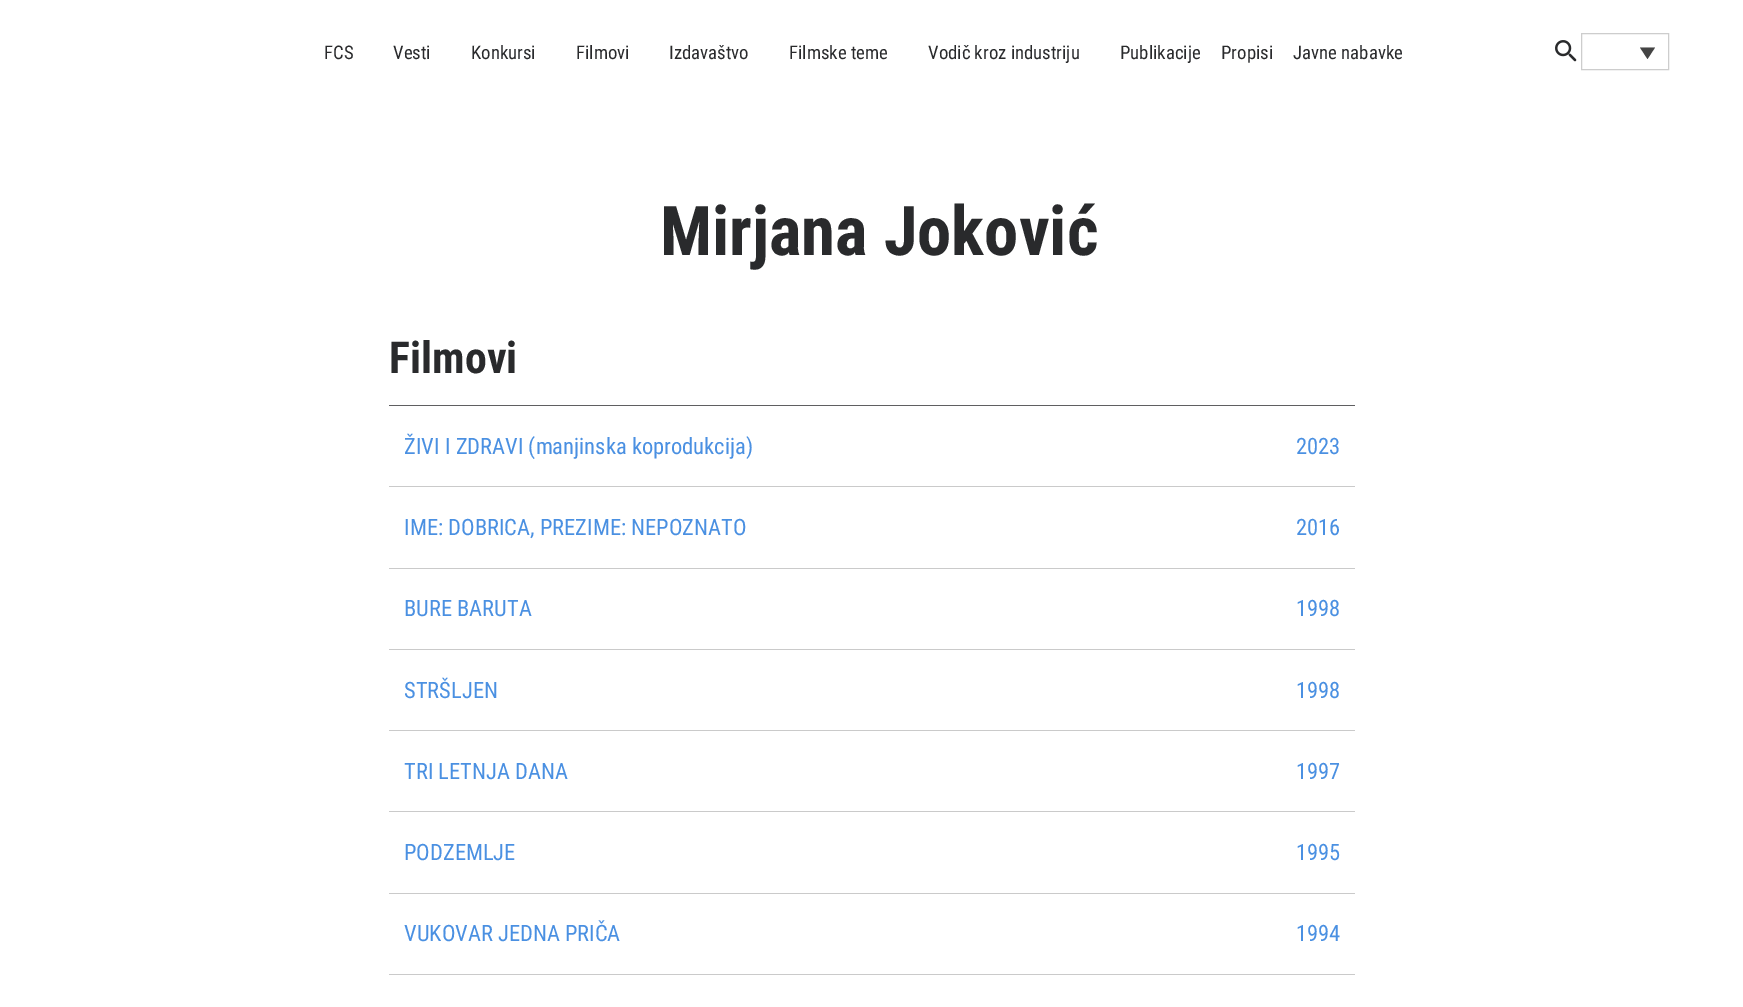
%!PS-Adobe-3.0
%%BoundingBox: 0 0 1743 1007
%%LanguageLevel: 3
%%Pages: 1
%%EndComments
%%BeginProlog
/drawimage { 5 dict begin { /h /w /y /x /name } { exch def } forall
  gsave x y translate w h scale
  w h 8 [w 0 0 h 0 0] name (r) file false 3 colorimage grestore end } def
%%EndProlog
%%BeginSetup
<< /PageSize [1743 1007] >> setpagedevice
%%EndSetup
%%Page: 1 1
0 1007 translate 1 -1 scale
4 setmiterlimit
1 setgray
0 0 1743 1007 rectfill
(images/1.raw) 1555 40 22 22 drawimage
0.804 setgray
1581.5 33.5 87 36 rectstroke
0.267 setgray
newpath 1640 47.5 moveto 1655 47.5 lineto 1647.5 59 lineto closepath fill
0.373 0.373 0.38 setrgbcolor
389 405 966 1 rectfill
0.792 setgray
389 486 966 1 rectfill
389 568 966 1 rectfill
389 649 966 1 rectfill
389 730 966 1 rectfill
389 811 966 1 rectfill
389 893 966 1 rectfill
389 974 966 1 rectfill
/RobotoCondensed-Regular [18.75 0 0 -18.75 0 0] selectfont
0.161 0.165 0.173 setrgbcolor
324 59 moveto (FCS) show
393 59 moveto (Vesti) show
471 59 moveto (Konkursi) show
576 59 moveto (Filmovi) show
669 59 moveto (Izdavaštvo) show
789 59 moveto (Filmske teme) show
928 59 moveto (Vodič kroz industriju) show
1120 59 moveto (Publikacije) show
1221 59 moveto (Propisi) show
1293 59 moveto (Javne nabavke) show
/RobotoCondensed-Bold [68.75 0 0 -68.75 0 0] selectfont
660 255 moveto (Mirjana Joković) show
/RobotoCondensed-Bold [44 0 0 -44 0 0] selectfont
389 373 moveto (Filmovi) show
/RobotoCondensed-Regular [22.5 0 0 -22.5 0 0] selectfont
0.29 0.565 0.886 setrgbcolor
404 454 moveto (ŽIVI I ZDRAVI \(manjinska koprodukcija\)) show
1296 454 moveto (2023) show
404 535 moveto (IME: DOBRICA, PREZIME: NEPOZNATO) show
1296 535 moveto (2016) show
404 616 moveto (BURE BARUTA) show
1296 616 moveto (1998) show
404 698 moveto (STRŠLJEN) show
1296 698 moveto (1998) show
404 779 moveto (TRI LETNJA DANA) show
1296 779 moveto (1997) show
404 860 moveto (PODZEMLJE) show
1296 860 moveto (1995) show
404 941 moveto (VUKOVAR JEDNA PRIČA) show
1296 941 moveto (1994) show
showpage
%%EOF
